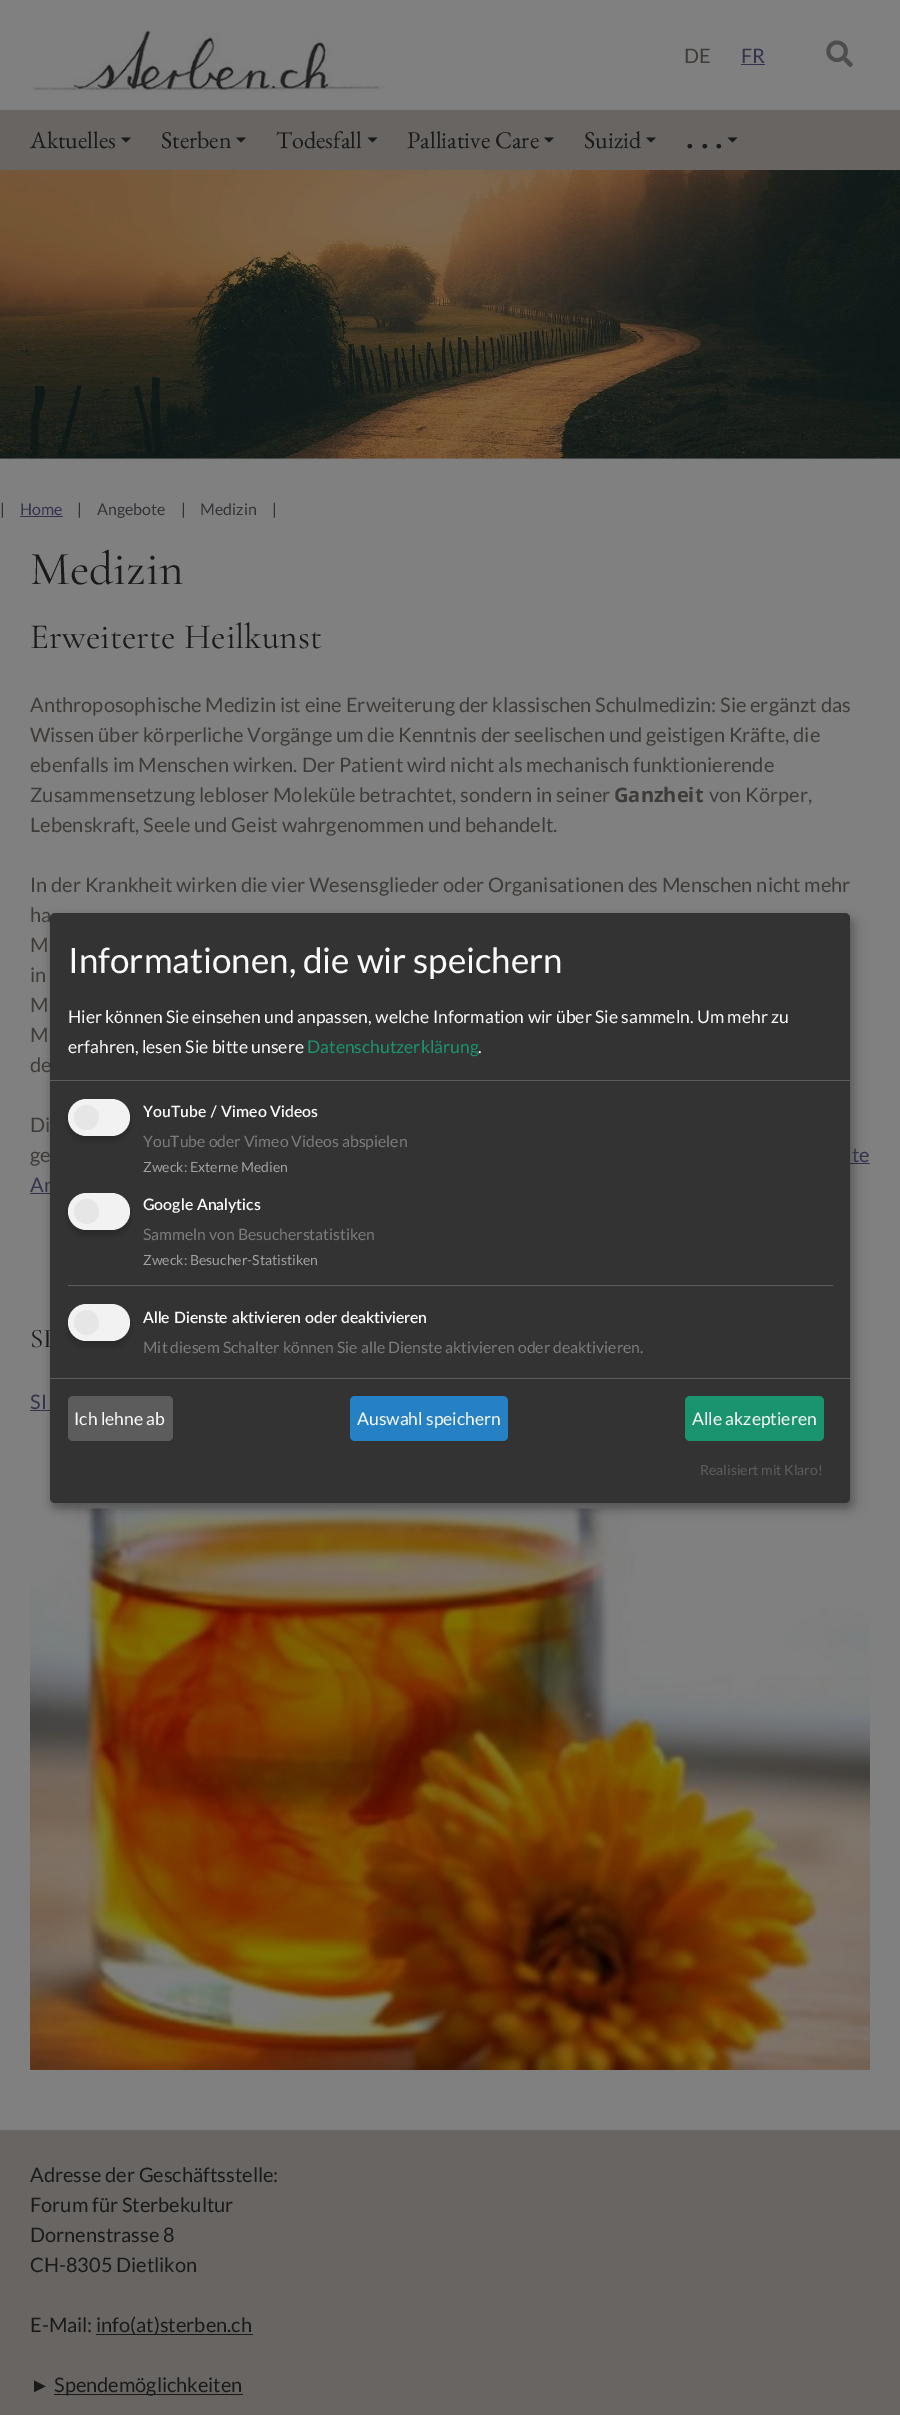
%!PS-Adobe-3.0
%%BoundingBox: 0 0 900 2415
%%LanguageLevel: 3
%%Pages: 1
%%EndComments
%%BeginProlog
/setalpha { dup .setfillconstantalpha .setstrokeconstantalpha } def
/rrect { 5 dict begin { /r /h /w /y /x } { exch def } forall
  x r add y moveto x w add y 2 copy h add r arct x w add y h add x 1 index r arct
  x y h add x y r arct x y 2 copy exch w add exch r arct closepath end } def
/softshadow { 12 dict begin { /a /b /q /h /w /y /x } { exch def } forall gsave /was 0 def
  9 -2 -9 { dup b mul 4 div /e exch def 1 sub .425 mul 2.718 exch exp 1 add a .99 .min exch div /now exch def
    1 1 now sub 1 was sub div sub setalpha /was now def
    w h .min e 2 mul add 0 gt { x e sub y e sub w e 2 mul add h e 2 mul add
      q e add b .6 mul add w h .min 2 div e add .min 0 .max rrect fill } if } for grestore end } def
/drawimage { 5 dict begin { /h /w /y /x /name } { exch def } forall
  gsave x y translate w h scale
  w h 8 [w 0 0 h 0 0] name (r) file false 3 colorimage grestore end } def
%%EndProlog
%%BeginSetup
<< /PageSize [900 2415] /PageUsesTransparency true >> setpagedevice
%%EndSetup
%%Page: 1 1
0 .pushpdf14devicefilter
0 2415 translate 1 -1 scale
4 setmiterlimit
0.502 setgray
0 0 900 2415 rectfill
(images/1.raw) 31 30 355 62 drawimage
0.2 0.2 0.302 setrgbcolor
741 64 24 1 rectfill
(images/2.raw) 826 40 27 27 drawimage
0.408 0.396 0.384 setrgbcolor
0 110 900 60 rectfill
0.102 setgray
newpath 121 137.5 moveto 131 137.5 lineto 126 142.5 lineto closepath fill
newpath 236 137.5 moveto 246 137.5 lineto 241 142.5 lineto closepath fill
newpath 367.5 137.5 moveto 377.5 137.5 lineto 372.5 142.5 lineto closepath fill
newpath 544 137.5 moveto 554 137.5 lineto 549 142.5 lineto closepath fill
newpath 646 137.5 moveto 656 137.5 lineto 651 142.5 lineto closepath fill
newpath 727.5 137.5 moveto 737.5 137.5 lineto 732.5 142.5 lineto closepath fill
(images/3.raw) 0 170 900 289 drawimage
0.2 0.2 0.302 setrgbcolor
20 516 43 1 rectfill
850 1163 20 1 rectfill
30 1193 20 1 rectfill
30 1410 20 1 rectfill
(images/4.raw) 30 1506 840 564 drawimage
0 setgray
56 919 800 590 5 6 0.19 softshadow
50 918 800 590 5 4 0.2 softshadow
0.408 0.396 0.384 setrgbcolor
0 2130 900 285 rectfill
0.102 setgray
96 2334 157 1 rectfill
54 2394 189 1 rectfill
/Lato-Regular [20 0 0 -20 0 0] selectfont
0.243 0.231 0.22 setrgbcolor
684 63 moveto (DE) show
0.2 0.2 0.302 setrgbcolor
741 63 moveto (FR) show
/EBGaramond-Regular [24 0 0 -24 0 0] selectfont
0.102 setgray
30 148 moveto (Aktuelles) show
161 148 moveto (Sterben) show
276 148 moveto (Todesfall) show
407 148 moveto (Palliative Care) show
584 148 moveto (Suizid) show
/OpenSans-Bold [27 0 0 -27 0 0] selectfont
686 148 moveto (. . .) show
/Lato-Regular [16 0 0 -16 0 0] selectfont
0.196 0.2 0.216 setrgbcolor
0 515 moveto (|) show
0.2 0.2 0.302 setrgbcolor
20 515 moveto (Home) show
0.196 0.2 0.216 setrgbcolor
77 515 moveto (|) show
97 515 moveto (Angebote) show
181 515 moveto (|) show
200 515 moveto (Medizin) show
272 515 moveto (|) show
/CormorantGaramond-Regular [47.5 0 0 -47.5 0 0] selectfont
0.102 setgray
30 584 moveto (Medizin) show
/CormorantGaramond-Regular [35.5 0 0 -35.5 0 0] selectfont
30 648 moveto (Erweiterte Heilkunst) show
/Lato-Regular [20 0 0 -20 0 0] selectfont
0.243 0.231 0.22 setrgbcolor
30 712 moveto (Anthroposophische Medizin ist eine Erweiterung der klassischen Schulmedizin: Sie ergänzt das) show
30 742 moveto (Wissen über körperliche Vorgänge um die Kenntnis der seelischen und geistigen Kräfte, die) show
30 772 moveto (ebenfalls im Menschen wirken. Der Patient wird nicht als mechanisch funktionierende) show
30 802 moveto (Zusammensetzung lebloser Moleküle betrachtet, sondern in seiner) show
/OpenSans-Bold [20 0 0 -20 0 0] selectfont
614 802 moveto (Ganzheit) show
/Lato-Regular [20 0 0 -20 0 0] selectfont
709 802 moveto (von Körper,) show
30 832 moveto (Lebenskraft, Seele und Geist wahrgenommen und behandelt.) show
30 892 moveto (In der Krankheit wirken die vier Wesensglieder oder Organisationen des Menschen nicht mehr) show
30 922 moveto (ha) show
30 952 moveto (M) show
30 982 moveto (in) show
30 1012 moveto (M) show
30 1042 moveto (M) show
30 1072 moveto (de) show
30 1132 moveto (Di) show
30 1162 moveto (ge) show
0.2 0.2 0.302 setrgbcolor
852 1162 moveto (te) show
30 1192 moveto (An) show
/CormorantGaramond-Regular [27 0 0 -27 0 0] selectfont
0.102 setgray
30 1347 moveto (SI) show
/Lato-Regular [20 0 0 -20 0 0] selectfont
0.2 0.2 0.302 setrgbcolor
30 1409 moveto (SI) show
0.2 setgray
50 913 800 590 5 rrect fill
0.361 setgray
50 1080 800 1 rectfill
/Lato-Regular [35 0 0 -35 0 0] selectfont
0.98 setgray
68 973 moveto (Informationen, die wir speichern) show
/Lato-Regular [17.5 0 0 -17.5 0 0] selectfont
68 1023 moveto (Hier können Sie einsehen und anpassen, welche Information wir über Sie sammeln. Um mehr zu) show
68 1053 moveto (erfahren, lesen Sie bitte unsere) show
0.102 0.576 0.435 setrgbcolor
307 1053 moveto (Datenschutzerklärung) show
0.98 setgray
478 1053 moveto (.) show
0 setgray
68 1104 62 37 18.5 4 0.2 softshadow
0.949 setgray
68 1099 62 37 18.5 rrect fill
0.902 setgray
newpath 86.5 1117.5 12.5 0 360 arc closepath fill
/Lato-SemiBold [15.75 0 0 -15.75 0 0] selectfont
0.98 setgray
143 1117 moveto (YouTube / Vimeo Videos) show
/Lato-Regular [15.75 0 0 -15.75 0 0] selectfont
0.486 setgray
143 1147 moveto (YouTube oder Vimeo Videos abspielen) show
/Lato-Regular [14 0 0 -14 0 0] selectfont
0.627 setgray
143 1172 moveto (Zweck: Externe Medien) show
0 setgray
68 1198 62 37 18.5 4 0.2 softshadow
0.949 setgray
68 1193 62 37 18.5 rrect fill
0.902 setgray
newpath 86.5 1211.5 12.5 0 360 arc closepath fill
/Lato-SemiBold [15.75 0 0 -15.75 0 0] selectfont
0.98 setgray
143 1210 moveto (Google Analytics) show
/Lato-Regular [15.75 0 0 -15.75 0 0] selectfont
0.486 setgray
143 1240 moveto (Sammeln von Besucherstatistiken) show
/Lato-Regular [14 0 0 -14 0 0] selectfont
0.627 setgray
143 1265 moveto (Zweck: Besucher-Statistiken) show
0.361 setgray
68 1285 765 1 rectfill
0 setgray
68 1309 62 37 18.5 4 0.2 softshadow
0.949 setgray
68 1304 62 37 18.5 rrect fill
0.902 setgray
newpath 86.5 1322.5 12.5 0 360 arc closepath fill
/Lato-SemiBold [15.75 0 0 -15.75 0 0] selectfont
0.98 setgray
143 1323 moveto (Alle Dienste aktivieren oder deaktivieren) show
/Lato-Regular [15.75 0 0 -15.75 0 0] selectfont
0.486 setgray
143 1353 moveto (Mit diesem Schalter können Sie alle Dienste aktivieren oder deaktivieren.) show
0.361 setgray
50 1378 800 1 rectfill
68 1396 105 45 5 rrect fill
/Lato-Regular [17.5 0 0 -17.5 0 0] selectfont
0.98 setgray
74 1425 moveto (Ich lehne ab) show
0.145 0.506 0.769 setrgbcolor
350 1396 158 45 5 rrect fill
0.98 setgray
357 1425 moveto (Auswahl speichern) show
0.102 0.576 0.435 setrgbcolor
685 1396 139 45 5 rrect fill
0.98 setgray
692 1425 moveto (Alle akzeptieren) show
/Lato-Regular [14 0 0 -14 0 0] selectfont
0.361 setgray
700 1475 moveto (Realisiert mit Klaro!) show
/Lato-Regular [20 0 0 -20 0 0] selectfont
0.102 setgray
30 2182 moveto (Adresse der Geschäftsstelle:) show
30 2212 moveto (Forum für Sterbekultur) show
30 2242 moveto (Dornenstrasse 8) show
30 2272 moveto (CH-8305 Dietlikon) show
30 2332 moveto (E-Mail:) show
96 2332 moveto (info\(at\)sterben.ch) show
/LiberationSans-Regular [20 0 0 -20 0 0] selectfont
30 2392 moveto (►) show
/Lato-Regular [20 0 0 -20 0 0] selectfont
54 2392 moveto (Spendemöglichkeiten) show
.poppdf14devicefilter showpage
%%EOF
